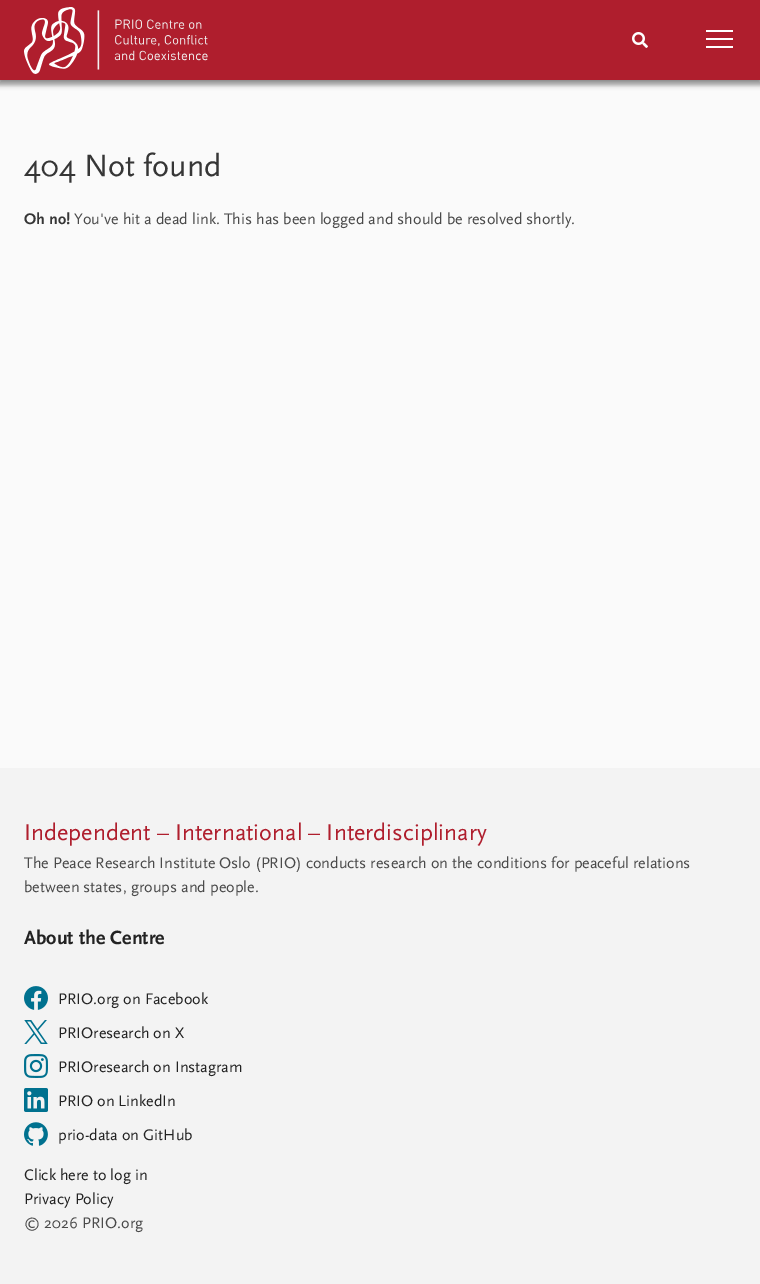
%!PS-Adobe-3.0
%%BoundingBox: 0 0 760 1284
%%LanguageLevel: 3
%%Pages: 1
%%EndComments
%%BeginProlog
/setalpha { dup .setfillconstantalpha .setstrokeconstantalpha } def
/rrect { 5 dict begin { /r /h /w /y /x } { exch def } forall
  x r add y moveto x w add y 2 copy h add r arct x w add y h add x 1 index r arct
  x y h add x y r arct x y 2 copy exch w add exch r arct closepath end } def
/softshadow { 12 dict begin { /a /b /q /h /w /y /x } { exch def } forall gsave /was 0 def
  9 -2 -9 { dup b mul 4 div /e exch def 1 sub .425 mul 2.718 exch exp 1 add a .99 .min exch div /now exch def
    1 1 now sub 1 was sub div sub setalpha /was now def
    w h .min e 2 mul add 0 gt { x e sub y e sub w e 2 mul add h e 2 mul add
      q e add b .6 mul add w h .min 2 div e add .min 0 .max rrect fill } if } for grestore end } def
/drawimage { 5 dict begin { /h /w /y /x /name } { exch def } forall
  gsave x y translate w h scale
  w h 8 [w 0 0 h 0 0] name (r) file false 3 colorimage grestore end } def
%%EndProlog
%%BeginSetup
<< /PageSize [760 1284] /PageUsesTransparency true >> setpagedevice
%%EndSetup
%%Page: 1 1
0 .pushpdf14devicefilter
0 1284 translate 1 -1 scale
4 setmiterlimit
0.98 setgray
0 0 760 1284 rectfill
0.906 setgray
-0.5 -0.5 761 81 rectstroke
0.196 setgray
-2 2 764 83 0 2.5 0.5 softshadow
0.686 0.118 0.176 setrgbcolor
0 0 760 80 rectfill
(images/1.raw) 24 7 184 67 drawimage
(images/2.raw) 632 32 16 16 drawimage
1 setgray
706 30 27 2 rectfill
706 38 27 2 rectfill
706 46 27 2 rectfill
0.953 setgray
0 768 760 516 rectfill
(images/3.raw) 24 986 24 24 drawimage
(images/4.raw) 24 1020 24 24 drawimage
(images/5.raw) 24 1054 24 24 drawimage
(images/6.raw) 24 1088 24 24 drawimage
(images/7.raw) 24 1122 24 24 drawimage
/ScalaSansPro-Regular [32 0 0 -32 0 0] selectfont
0.212 setgray
24 176 moveto (404 Not found) show
/ScalaSansPro-Bold [16 0 0 -16 0 0] selectfont
24 224 moveto (Oh no!) show
/ScalaSansPro-Regular [16 0 0 -16 0 0] selectfont
0.29 setgray
74 224 moveto (You've hit a dead link. This has been logged and should be resolved shortly.) show
/ScalaSansPro-Regular [24 0 0 -24 0 0] selectfont
0.686 0.118 0.176 setrgbcolor
24 840 moveto (Independent – International – Interdisciplinary) show
/ScalaSansPro-Regular [16 0 0 -16 0 0] selectfont
0.29 setgray
24 868 moveto (The Peace Research Institute Oslo \(PRIO\) conducts research on the conditions for peaceful relations) show
24 892 moveto (between states, groups and people.) show
/ScalaSansPro-Bold [20 0 0 -20 0 0] selectfont
0.133 setgray
24 944 moveto (About the Centre) show
/ScalaSansPro-Regular [16 0 0 -16 0 0] selectfont
58 1004 moveto (PRIO.org on Facebook) show
58 1038 moveto (PRIOresearch on X) show
58 1072 moveto (PRIOresearch on Instagram) show
58 1106 moveto (PRIO on LinkedIn) show
58 1140 moveto (prio-data on GitHub) show
24 1180 moveto (Click here to log in) show
24 1204 moveto (Privacy Policy) show
0.29 setgray
24 1228 moveto (© 2026 PRIO.org) show
.poppdf14devicefilter showpage
%%EOF
